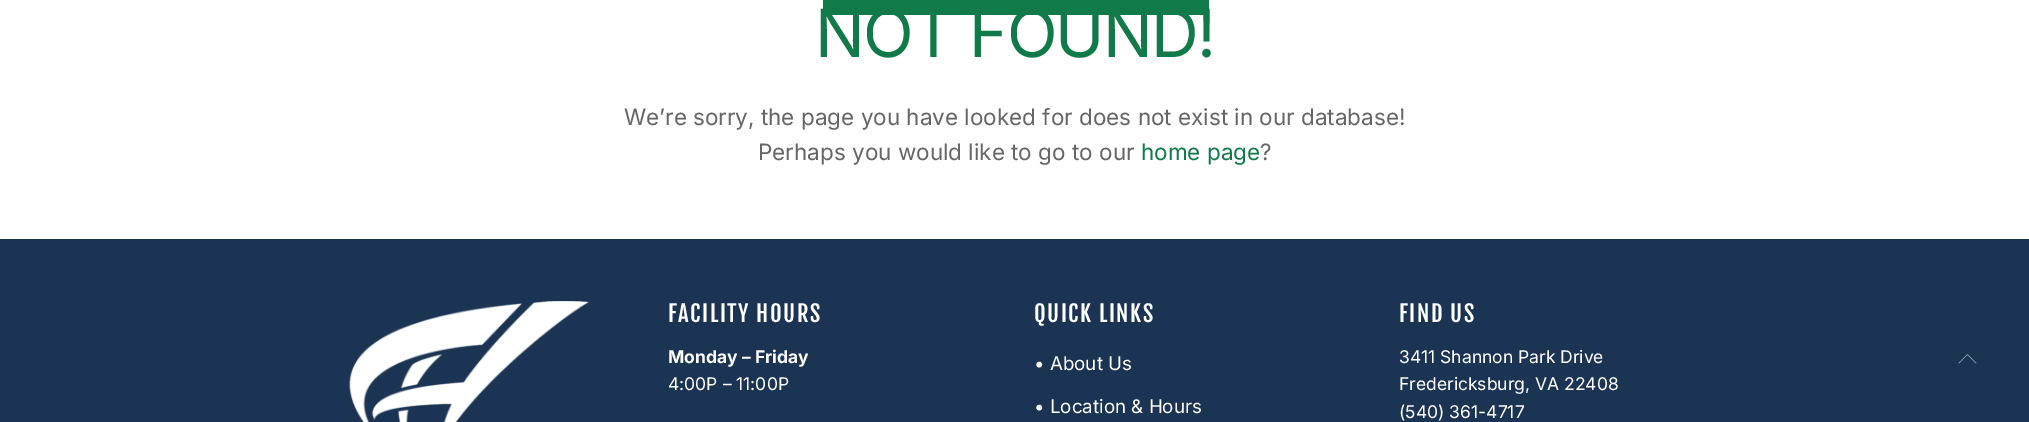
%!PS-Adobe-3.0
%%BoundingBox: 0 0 2029 422
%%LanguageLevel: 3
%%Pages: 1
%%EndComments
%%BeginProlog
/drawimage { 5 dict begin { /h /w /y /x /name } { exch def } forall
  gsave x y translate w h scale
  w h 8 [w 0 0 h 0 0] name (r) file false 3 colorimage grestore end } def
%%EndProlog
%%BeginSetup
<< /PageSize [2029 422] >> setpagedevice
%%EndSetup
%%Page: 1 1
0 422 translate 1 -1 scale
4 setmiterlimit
1 setgray
0 0 2029 422 rectfill
0.067 0.478 0.286 setrgbcolor
823 0 386 15 rectfill
0.106 0.204 0.325 setrgbcolor
0 239 2029 183 rectfill
(images/1.raw) 349 301 240 121 drawimage
0.553 0.604 0.663 setrgbcolor
newpath 1967.5 354 moveto 1976.5 363 lineto 1976 363.5 lineto 1967.5 355 lineto 1959 363.5 lineto 1958.5 363 lineto closepath fill
/Inter-Regular [66.25 0 0 -66.25 0 0] selectfont
0.067 0.478 0.286 setrgbcolor
815 57 moveto -1.9 0 (NOT FOUND!) ashow
/Inter-Regular [22.5 0 0 -22.5 0 0] selectfont
0.4 setgray
624 125 moveto (We’re sorry, the page you have looked for does not exist in our database!) show
758 160 moveto (Perhaps you would like to go to our) show
0.067 0.478 0.286 setrgbcolor
1141 160 moveto (home page) show
0.4 setgray
1260 160 moveto (?) show
/FjallaOne-Regular [22.5 0 0 -22.5 0 0] selectfont
1 setgray
668 322 moveto 1.5 0 (FACILITY HOURS) ashow
/Inter-Bold [17.5 0 0 -17.5 0 0] selectfont
668 363 moveto (Monday – Friday) show
/Inter-Regular [17.5 0 0 -17.5 0 0] selectfont
668 390 moveto (4:00P – 11:00P) show
/FjallaOne-Regular [22.5 0 0 -22.5 0 0] selectfont
1034 322 moveto 1.5 0 (QUICK LINKS) ashow
/Inter-Regular [18.75 0 0 -18.75 0 0] selectfont
1034 370 moveto (• About Us) show
1034 413 moveto (• Location & Hours) show
/FjallaOne-Regular [22.5 0 0 -22.5 0 0] selectfont
1399 322 moveto 1.5 0 (FIND US) ashow
/Inter-Regular [17.5 0 0 -17.5 0 0] selectfont
1399 363 moveto (3411 Shannon Park Drive) show
1399 390 moveto (Fredericksburg, VA 22408) show
1399 418 moveto (\(540\) 361-4717) show
showpage
%%EOF
